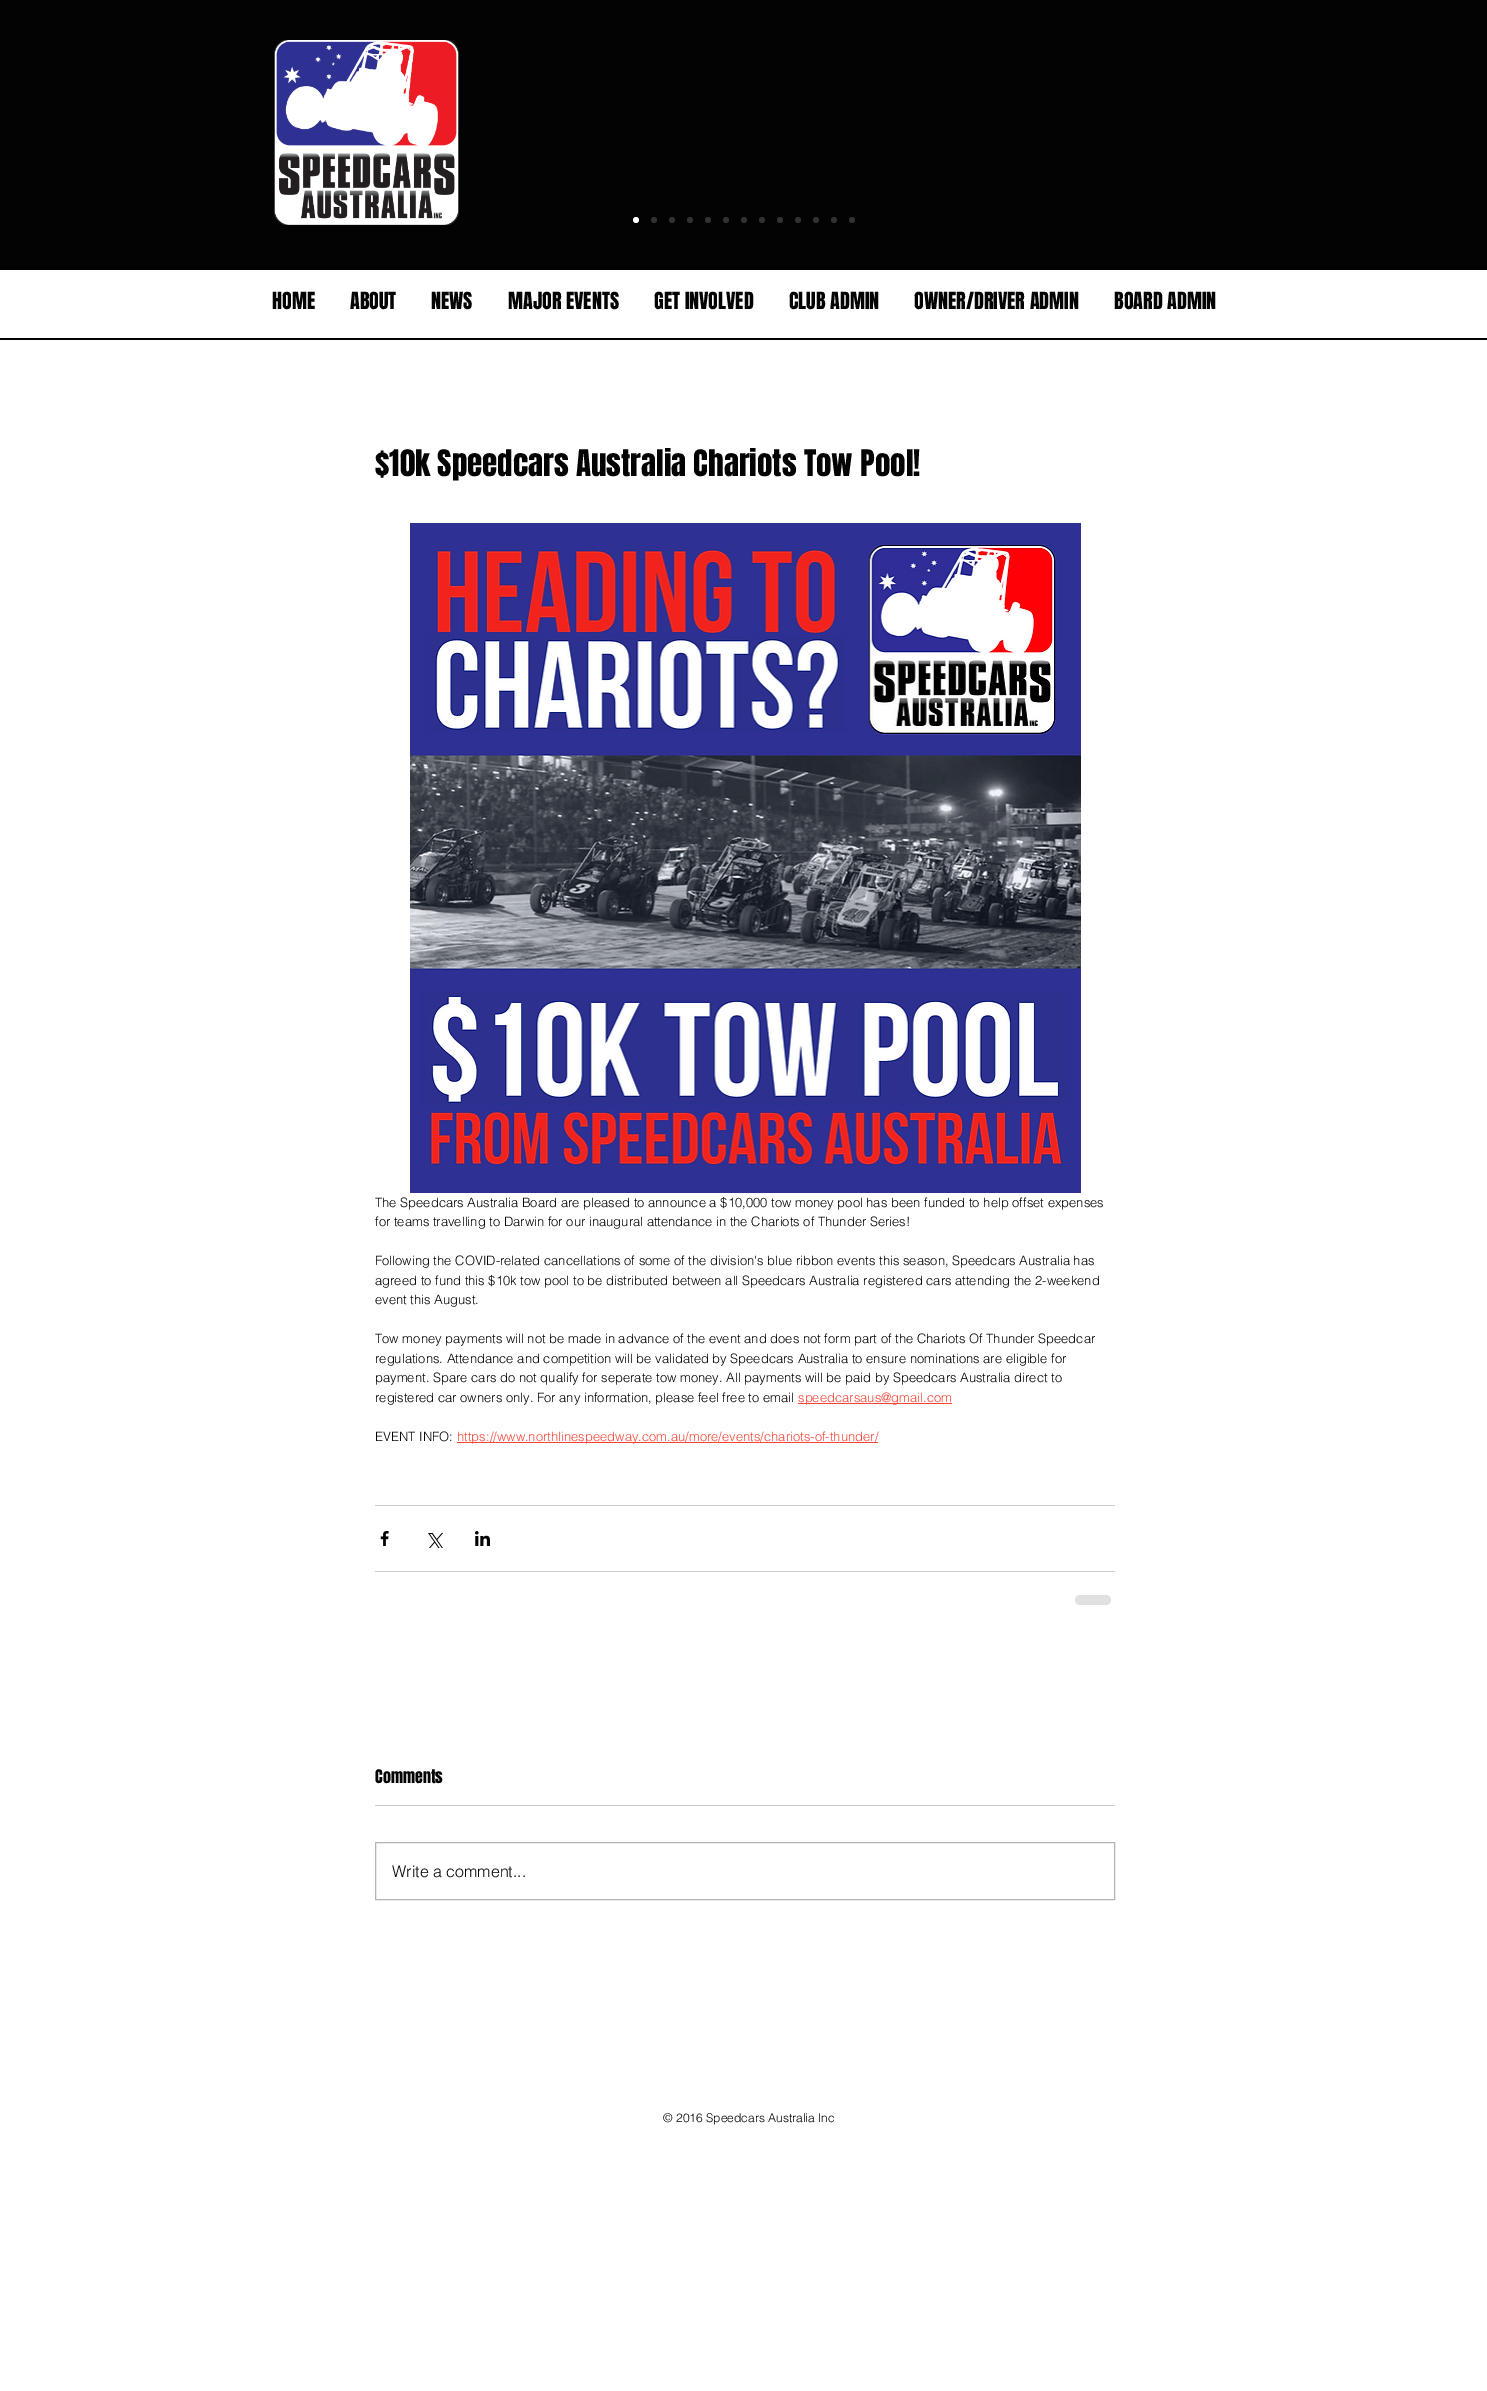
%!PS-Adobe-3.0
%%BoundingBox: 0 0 1487 2391
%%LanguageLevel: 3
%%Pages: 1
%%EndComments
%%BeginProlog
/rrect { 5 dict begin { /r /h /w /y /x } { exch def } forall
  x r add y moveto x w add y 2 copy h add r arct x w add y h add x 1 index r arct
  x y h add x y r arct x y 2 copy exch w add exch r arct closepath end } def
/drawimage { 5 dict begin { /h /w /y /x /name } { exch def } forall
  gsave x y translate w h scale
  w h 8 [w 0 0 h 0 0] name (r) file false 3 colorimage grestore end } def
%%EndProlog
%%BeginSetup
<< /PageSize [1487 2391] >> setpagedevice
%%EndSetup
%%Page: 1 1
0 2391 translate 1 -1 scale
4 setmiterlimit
1 setgray
0 0 1487 2391 rectfill
0.012 setgray
0 0 1487 270 rectfill
(images/1.raw) 274 40 185 185 drawimage
1 setgray
newpath 636 220 3 0 360 arc closepath fill
0.196 0.192 0.192 setrgbcolor
newpath 654 220 3 0 360 arc closepath fill
newpath 672 220 3 0 360 arc closepath fill
newpath 690 220 3 0 360 arc closepath fill
newpath 708 220 3 0 360 arc closepath fill
newpath 726 220 3 0 360 arc closepath fill
newpath 744 220 3 0 360 arc closepath fill
newpath 762 220 3 0 360 arc closepath fill
newpath 780 220 3 0 360 arc closepath fill
newpath 798 220 3 0 360 arc closepath fill
newpath 816 220 3 0 360 arc closepath fill
newpath 834 220 3 0 360 arc closepath fill
newpath 852 220 3 0 360 arc closepath fill
0.012 setgray
0 338 1487 2 rectfill
(images/2.raw) 410 523 671 670 drawimage
0.973 0.278 0.22 setrgbcolor
798 1403 154 1 rectfill
457 1442 421 1 rectfill
0.804 setgray
375 1505 740 1 rectfill
(images/3.raw) 380 1531 9 15 drawimage
(images/4.raw) 428 1533 15 15 drawimage
(images/5.raw) 475 1531 15 15 drawimage
375 1571 740 1 rectfill
0.882 setgray
1075 1595 36 10 5 rrect fill
0.804 setgray
375 1805 740 1 rectfill
0.702 setgray
375.5 1842.5 739 57 rectstroke
/Anton-Regular [20 0 0 -20 0 0] selectfont
0.012 setgray
272 309 moveto (HOME) show
350 309 moveto (ABOUT) show
431 309 moveto (NEWS) show
508 309 moveto (MAJOR EVENTS) show
654 309 moveto (GET INVOLVED) show
789 309 moveto (CLUB ADMIN) show
914 309 moveto (OWNER/DRIVER ADMIN) show
1114 309 moveto (BOARD ADMIN) show
/Anton-Regular [31 0 0 -31 0 0] selectfont
375 476 moveto ($10k Speedcars Australia Chariots Tow Pool!) show
/helvetica-Light [13 0 0 -13 0 0] selectfont
375 1207 moveto (The Speedcars Australia Board are pleased to announce a $10,000 tow money pool has been funded to help offset expenses) show
375 1226 moveto (for teams travelling to Darwin for our inaugural attendance in the Chariots of Thunder Series!) show
375 1265 moveto (Following the COVID-related cancellations of some of the division's blue ribbon events this season, Speedcars Australia has) show
375 1285 moveto (agreed to fund this $10k tow pool to be distributed between all Speedcars Australia registered cars attending the 2-weekend) show
375 1304 moveto (event this August.) show
375 1343 moveto (Tow money payments will not be made in advance of the event and does not form part of the Chariots Of Thunder Speedcar) show
375 1363 moveto (regulations. Attendance and competition will be validated by Speedcars Australia to ensure nominations are eligible for) show
375 1382 moveto (payment. Spare cars do not qualify for seperate tow money. All payments will be paid by Speedcars Australia direct to) show
375 1402 moveto (registered car owners only. For any information, please feel free to email) show
0.973 0.278 0.22 setrgbcolor
798 1402 moveto (speedcarsaus@gmail.com) show
0.012 setgray
375 1441 moveto (EVENT INFO:) show
0.973 0.278 0.22 setrgbcolor
457 1441 moveto (https://www.northlinespeedway.com.au/more/events/chariots-of-thunder/) show
/Anton-Regular [16 0 0 -16 0 0] selectfont
0.012 setgray
375 1783 moveto (Comments) show
/helvetica-Light [16 0 0 -16 0 0] selectfont
392 1877 moveto (Write a comment...) show
/helvetica-Light [12 0 0 -12 0 0] selectfont
663 2122 moveto (© 2016 Speedcars Australia Inc) show
showpage
%%EOF
